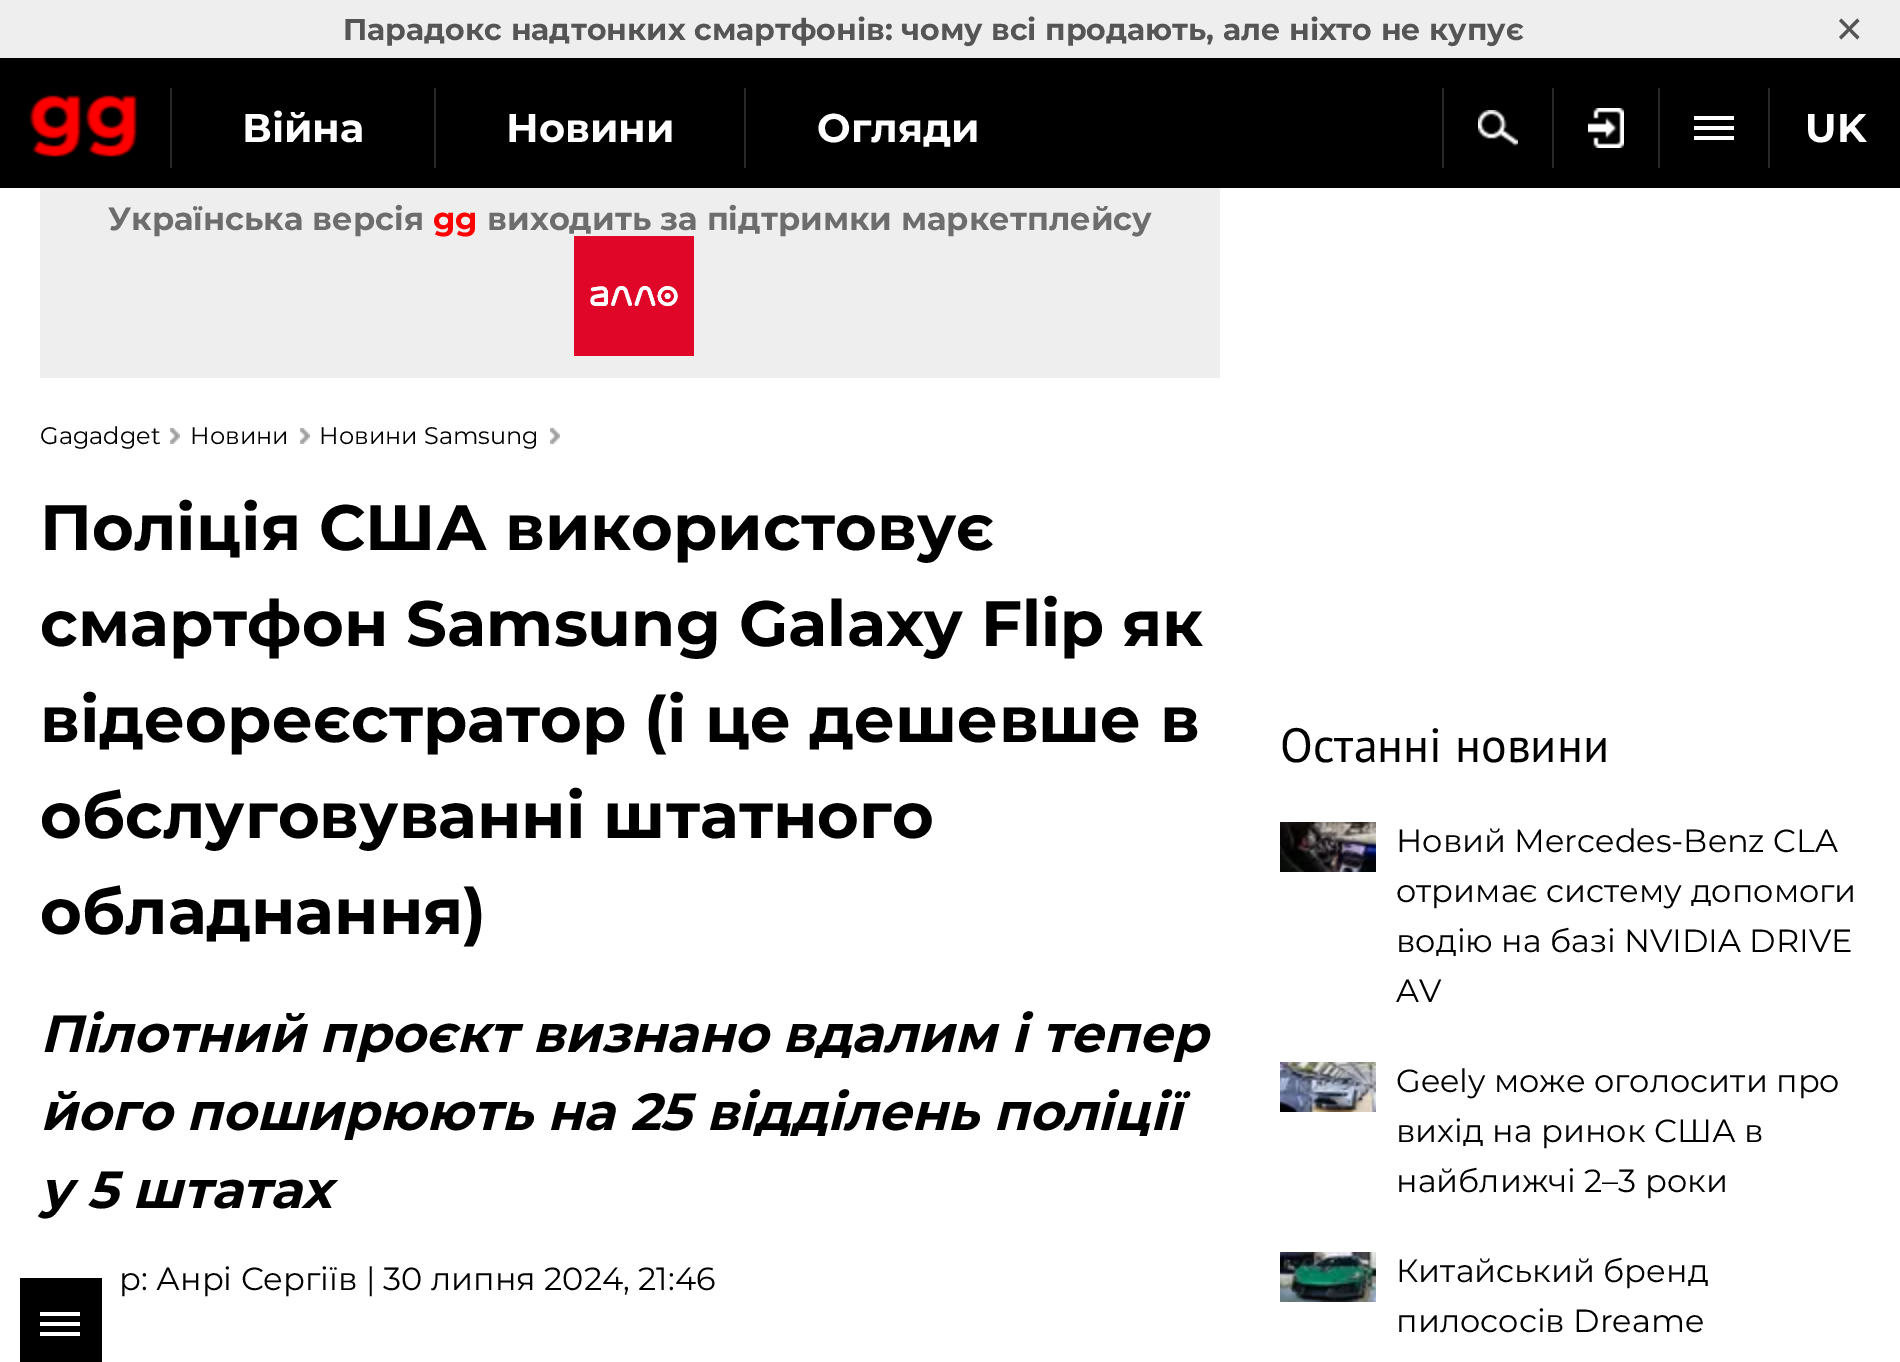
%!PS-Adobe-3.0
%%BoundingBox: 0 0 1900 1362
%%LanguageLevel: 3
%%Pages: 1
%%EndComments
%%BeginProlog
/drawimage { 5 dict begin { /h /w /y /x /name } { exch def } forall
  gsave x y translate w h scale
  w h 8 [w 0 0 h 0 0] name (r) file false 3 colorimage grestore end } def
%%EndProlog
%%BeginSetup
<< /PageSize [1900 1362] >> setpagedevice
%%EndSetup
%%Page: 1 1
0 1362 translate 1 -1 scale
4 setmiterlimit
1 setgray
0 0 1900 1362 rectfill
0 setgray
0 58 1900 130 rectfill
0.933 setgray
0 0 1900 58 rectfill
(images/1.raw) 29 95 109 62 drawimage
0.157 setgray
170 88 2 80 rectfill
434 88 2 80 rectfill
744 88 2 80 rectfill
1442 88 2 80 rectfill
(images/2.raw) 1478 110 40 36 drawimage
1552 88 2 80 rectfill
(images/3.raw) 1588 108 36 40 drawimage
1658 88 2 80 rectfill
1 setgray
1694 116 40 4 rectfill
1694 126 40 4 rectfill
1694 136 40 4 rectfill
0.157 setgray
1768 88 2 80 rectfill
0.933 setgray
40 188 1180 190 rectfill
(images/5.raw) 170 428 10 16 drawimage
(images/5.raw) 300 428 10 16 drawimage
(images/5.raw) 550 428 10 16 drawimage
(images/6.raw) 1280 822 96 50 drawimage
(images/7.raw) 1280 1062 96 50 drawimage
(images/8.raw) 1280 1252 96 50 drawimage
0 setgray
20 1278 82 84 rectfill
1 setgray
40 1312 40 4 rectfill
40 1322 40 4 rectfill
40 1332 40 4 rectfill
/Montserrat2-Thin [30 0 0 -30 0 0] selectfont
0.333 setgray
343 40 moveto (Парадокс надтонких смартфонів: чому всі продають, але ніхто не купує) show
/Montserrat-Thin [60 0 0 -60 0 0] selectfont
1832 50 moveto (×) show
/Montserrat2-Thin [40 0 0 -40 0 0] selectfont
1 setgray
242 142 moveto (Війна) show
506 142 moveto (Новини) show
817 142 moveto (Огляди) show
1805 142 moveto (UK) show
/Montserrat2-Thin [32 0 0 -32 0 0] selectfont
0.427 setgray
108 230 moveto (Українська версія) show
1 0 0 setrgbcolor
433 230 moveto (gg) show
0.427 setgray
487 230 moveto (виходить за підтримки маркетплейсу) show
(images/4.raw) 574 236 120 120 drawimage
/Montserrat-Thin [24 0 0 -24 0 0] selectfont
0 setgray
40 444 moveto (Gagadget) show
190 444 moveto (Новини) show
319 444 moveto (Новини Samsung) show
/Montserrat2-Thin [64 0 0 -64 0 0] selectfont
40 550 moveto (Поліція США використовує) show
40 646 moveto (смартфон Samsung Galaxy Flip як) show
40 742 moveto (відеореєстратор \(і це дешевше в) show
40 838 moveto (обслуговуванні штатного) show
40 934 moveto (обладнання\)) show
/Montserrat-ThinItalic [52 0 0 -52 0 0] selectfont
40 1052 moveto (Пілотний проєкт визнано вдалим і тепер) show
40 1130 moveto (його поширюють на 25 відділень поліції) show
40 1208 moveto (у 5 штатах) show
/Montserrat-Thin [32 0 0 -32 0 0] selectfont
119 1290 moveto (р: Анрі Сергіїв | 30 липня 2024, 21:46) show
/PTSans-Regular [48 0 0 -48 0 0] selectfont
1280 762 moveto (Останні новини) show
/Montserrat-Thin [32 0 0 -32 0 0] selectfont
1396 852 moveto (Новий Mercedes-Benz CLA) show
1396 902 moveto (отримає систему допомоги) show
1396 952 moveto (водію на базі NVIDIA DRIVE) show
1396 1002 moveto (AV) show
1396 1092 moveto (Geely може оголосити про) show
1396 1142 moveto (вихід на ринок США в) show
1396 1192 moveto (найближчі 2–3 роки) show
1396 1282 moveto (Китайський бренд) show
1396 1332 moveto (пилососів Dreame) show
showpage
%%EOF
